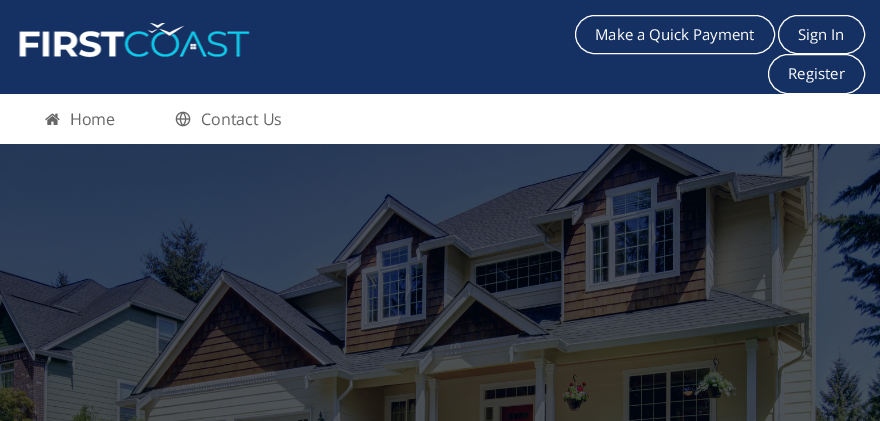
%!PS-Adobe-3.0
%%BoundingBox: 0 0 880 421
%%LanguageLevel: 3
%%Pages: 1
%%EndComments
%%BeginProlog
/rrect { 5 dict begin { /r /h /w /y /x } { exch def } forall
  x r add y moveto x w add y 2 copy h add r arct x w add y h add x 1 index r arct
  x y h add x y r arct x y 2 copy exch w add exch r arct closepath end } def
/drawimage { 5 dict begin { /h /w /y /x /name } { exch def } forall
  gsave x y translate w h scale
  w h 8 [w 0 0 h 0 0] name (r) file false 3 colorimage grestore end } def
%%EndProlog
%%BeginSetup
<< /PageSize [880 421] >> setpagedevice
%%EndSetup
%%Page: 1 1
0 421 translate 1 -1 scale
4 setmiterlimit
0.082 0.192 0.388 setrgbcolor
0 0 880 421 rectfill
(images/1.raw) 19 23 231 35 drawimage
1 setgray
575.5 15.5 199 38 19 rrect stroke
778.5 15.5 86 38 19 rrect stroke
768.5 54.5 96 39 19.5 rrect stroke
0 94 880 50 rectfill
(images/2.raw) 45 113 15 12 drawimage
(images/3.raw) 175 111 16 16 drawimage
(images/4.raw) 0 144 880 277 drawimage
/OpenSans-Regular [15 0 0 -15 0 0] selectfont
595 40 moveto (Make a Quick Payment) show
798 40 moveto (Sign In) show
788 79 moveto (Register) show
/OpenSans-Regular [16 0 0 -16 0 0] selectfont
0.4 setgray
70 125 moveto (Home) show
201 125 moveto (Contact Us) show
showpage
%%EOF
